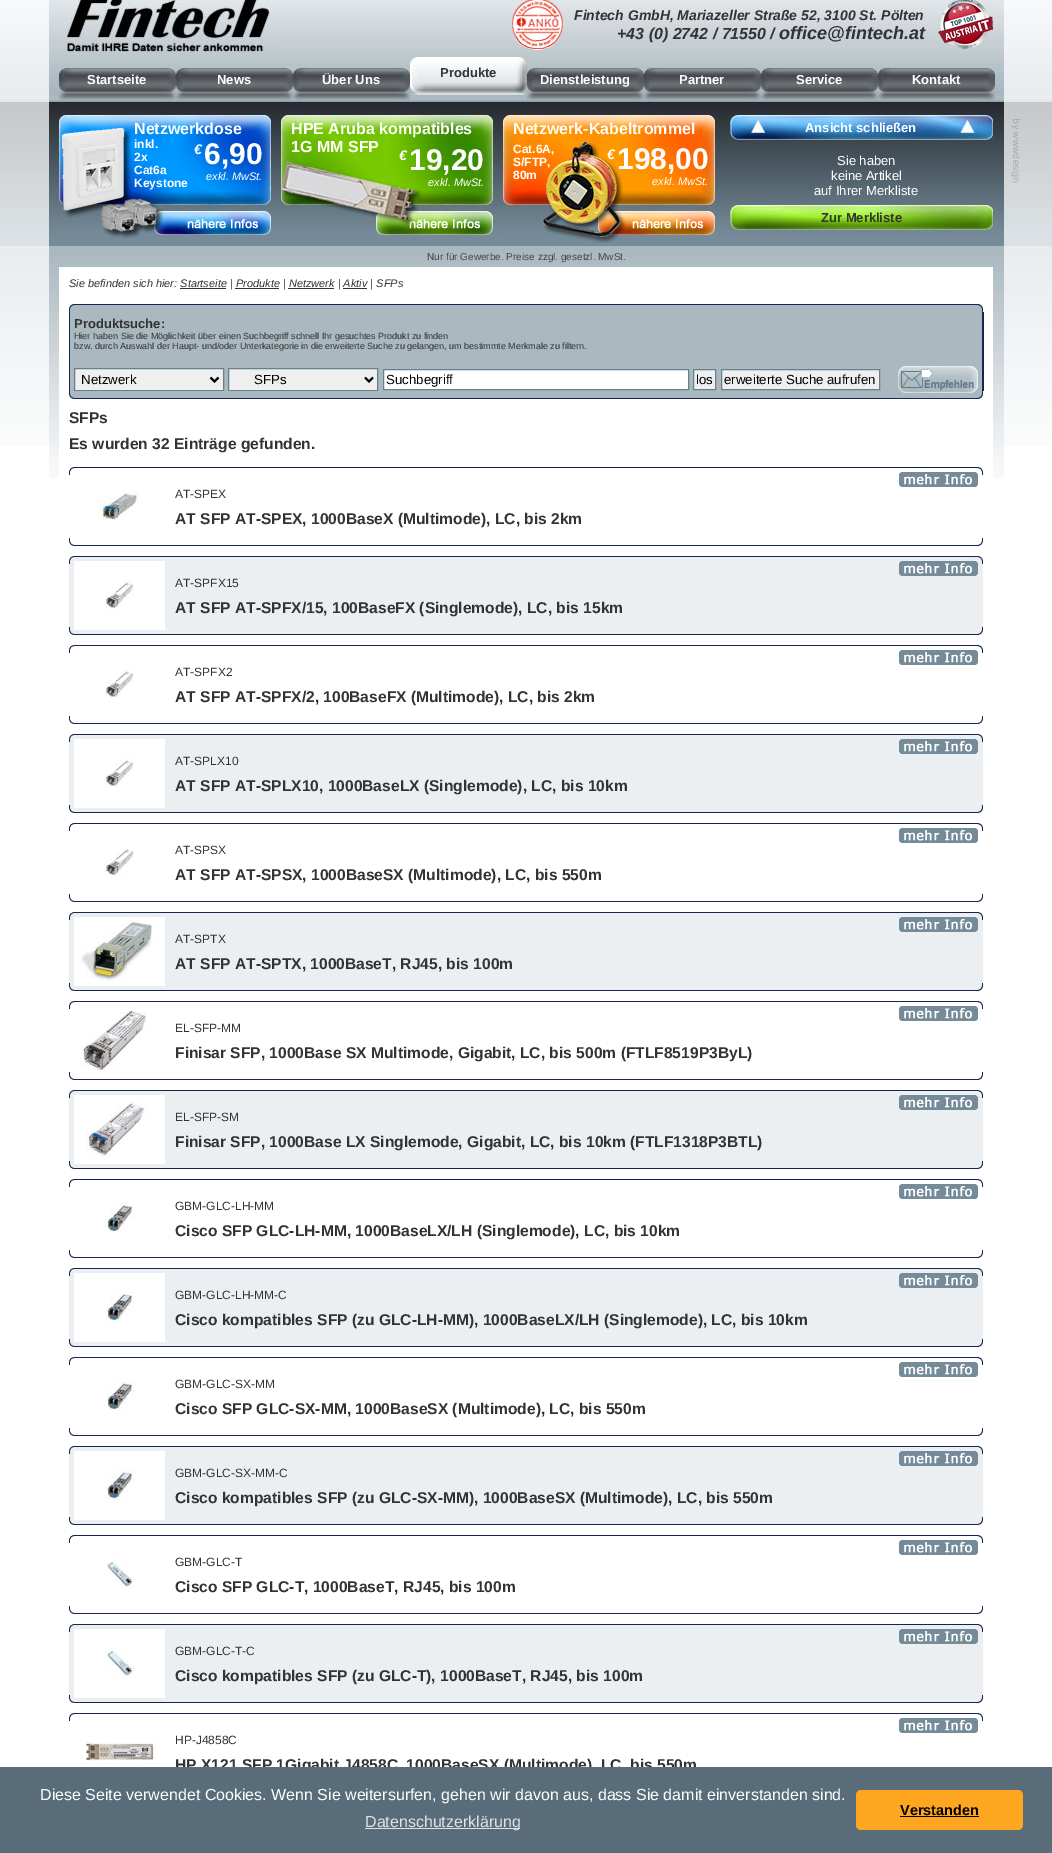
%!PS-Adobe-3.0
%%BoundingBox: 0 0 1052 1853
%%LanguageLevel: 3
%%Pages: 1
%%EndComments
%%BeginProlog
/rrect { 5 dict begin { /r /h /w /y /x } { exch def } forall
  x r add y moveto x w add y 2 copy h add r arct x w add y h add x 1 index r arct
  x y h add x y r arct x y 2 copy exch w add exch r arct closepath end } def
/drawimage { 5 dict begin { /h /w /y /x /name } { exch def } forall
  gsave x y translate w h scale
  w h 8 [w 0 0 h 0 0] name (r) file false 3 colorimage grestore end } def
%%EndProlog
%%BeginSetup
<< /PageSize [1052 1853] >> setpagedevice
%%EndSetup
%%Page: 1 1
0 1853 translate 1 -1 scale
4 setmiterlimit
1 setgray
0 0 1052 1853 rectfill
(images/1.raw) 0 0 1052 102 drawimage
(images/2.raw) 49 0 955 102 drawimage
(images/3.raw) 67 0 208 55 drawimage
(images/4.raw) 511 0 53 50 drawimage
(images/5.raw) 938 0 55 49 drawimage
(images/6.raw) 59 65 117 37 drawimage
(images/6.raw) 176 65 117 37 drawimage
(images/6.raw) 293 65 117 37 drawimage
(images/7.raw) 410 57 117 38 drawimage
(images/6.raw) 527 65 117 37 drawimage
(images/6.raw) 644 65 117 37 drawimage
(images/6.raw) 761 65 117 37 drawimage
(images/6.raw) 878 65 117 37 drawimage
(images/8.raw) 0 102 1052 344 drawimage
(images/9.raw) 49 102 955 376 drawimage
(images/10.raw) 59 115 221 124 drawimage
(images/11.raw) 281 115 212 120 drawimage
(images/12.raw) 503 115 212 128 drawimage
(images/13.raw) 730 115 263 25 drawimage
(images/14.raw) 730 205 263 25 drawimage
(images/15.raw) 1011 119 10 64 drawimage
59 267 934 211 rectfill
0.2 setgray
180 288 46 1 rectfill
235 288 44 1 rectfill
288 288 46 1 rectfill
343 288 24 1 rectfill
(images/16.raw) 69 304 914 8 drawimage
(images/17.raw) 69 312 915 79 drawimage
0.937 setgray
newpath 74.5 368.5 moveto 223.5 368.5 lineto 223.5 390.5 lineto 74.5 390.5 lineto closepath gsave fill grestore
0.404 0.502 0.545 setrgbcolor
stroke
0 setgray
2 setlinewidth
newpath 210.5 377.5 moveto 214.5 381.5 lineto 218.5 377.5 lineto stroke
0.937 setgray
newpath 228.5 368.5 moveto 377.5 368.5 lineto 377.5 390.5 lineto 228.5 390.5 lineto closepath gsave fill grestore
0.404 0.502 0.545 setrgbcolor
1 setlinewidth
stroke
0 setgray
2 setlinewidth
newpath 365 377.5 moveto 369 381.5 lineto 373 377.5 lineto stroke
1 setgray
newpath 383.5 369.5 moveto 688.5 369.5 lineto 688.5 389.5 lineto 383.5 389.5 lineto closepath gsave fill grestore
0.404 0.502 0.545 setrgbcolor
1 setlinewidth
stroke
0.937 setgray
newpath 693.5 369.5 moveto 715.5 369.5 lineto 715.5 389.5 lineto 693.5 389.5 lineto closepath gsave fill grestore
0.404 0.502 0.545 setrgbcolor
stroke
0.937 setgray
newpath 721.5 369.5 moveto 879.5 369.5 lineto 879.5 389.5 lineto 721.5 389.5 lineto closepath gsave fill grestore
0.404 0.502 0.545 setrgbcolor
stroke
(images/19.raw) 69 391 914 8 drawimage
(images/18.raw) 898 366 80 27 drawimage
(images/20.raw) 69 538 914 8 drawimage
(images/22.raw) 69 467 914 8 drawimage
1 setgray
75 474 1 1 rectfill
(images/21.raw) 98 490 41 31 drawimage
(images/23.raw) 899 472 79 15 drawimage
0.922 0.937 0.949 setrgbcolor
69 564 914 63 rectfill
(images/24.raw) 69 627 914 8 drawimage
(images/27.raw) 69 556 914 8 drawimage
1 setgray
74 561 91 69 rectfill
(images/25.raw) 104 580 30 29 drawimage
(images/26.raw) 899 561 79 15 drawimage
(images/20.raw) 69 716 914 8 drawimage
(images/22.raw) 69 645 914 8 drawimage
75 652 1 1 rectfill
(images/28.raw) 104 669 30 29 drawimage
(images/23.raw) 899 650 79 15 drawimage
0.922 0.937 0.949 setrgbcolor
69 742 914 63 rectfill
(images/24.raw) 69 805 914 8 drawimage
(images/27.raw) 69 734 914 8 drawimage
1 setgray
74 739 91 69 rectfill
(images/25.raw) 104 758 30 29 drawimage
(images/26.raw) 899 739 79 15 drawimage
(images/20.raw) 69 894 914 8 drawimage
(images/22.raw) 69 823 914 8 drawimage
75 830 1 1 rectfill
(images/29.raw) 104 847 30 29 drawimage
(images/23.raw) 899 828 79 15 drawimage
0.922 0.937 0.949 setrgbcolor
69 920 914 63 rectfill
(images/24.raw) 69 983 914 8 drawimage
(images/27.raw) 69 912 914 8 drawimage
1 setgray
74 917 91 69 rectfill
(images/30.raw) 80 917 73 64 drawimage
(images/26.raw) 899 917 79 15 drawimage
(images/20.raw) 69 1072 914 8 drawimage
(images/22.raw) 69 1001 914 8 drawimage
75 1008 1 1 rectfill
(images/31.raw) 80 1007 67 64 drawimage
(images/23.raw) 899 1006 79 15 drawimage
0.922 0.937 0.949 setrgbcolor
69 1098 914 63 rectfill
(images/24.raw) 69 1161 914 8 drawimage
(images/27.raw) 69 1090 914 8 drawimage
1 setgray
74 1095 91 69 rectfill
(images/32.raw) 86 1101 61 55 drawimage
(images/26.raw) 899 1095 79 15 drawimage
(images/20.raw) 69 1250 914 8 drawimage
(images/22.raw) 69 1179 914 8 drawimage
75 1186 1 1 rectfill
(images/33.raw) 106 1203 29 30 drawimage
(images/23.raw) 899 1184 79 15 drawimage
0.922 0.937 0.949 setrgbcolor
69 1276 914 63 rectfill
(images/24.raw) 69 1339 914 8 drawimage
(images/27.raw) 69 1268 914 8 drawimage
1 setgray
74 1273 91 69 rectfill
(images/34.raw) 106 1291 29 31 drawimage
(images/26.raw) 899 1273 79 15 drawimage
(images/20.raw) 69 1428 914 8 drawimage
(images/22.raw) 69 1357 914 8 drawimage
75 1364 1 1 rectfill
(images/33.raw) 106 1381 29 30 drawimage
(images/23.raw) 899 1362 79 15 drawimage
0.922 0.937 0.949 setrgbcolor
69 1454 914 63 rectfill
(images/24.raw) 69 1517 914 8 drawimage
(images/27.raw) 69 1446 914 8 drawimage
1 setgray
74 1451 91 69 rectfill
(images/34.raw) 106 1469 29 31 drawimage
(images/26.raw) 899 1451 79 15 drawimage
(images/20.raw) 69 1606 914 8 drawimage
(images/22.raw) 69 1535 914 8 drawimage
75 1542 1 1 rectfill
(images/35.raw) 104 1559 31 29 drawimage
(images/23.raw) 899 1540 79 15 drawimage
0.922 0.937 0.949 setrgbcolor
69 1632 914 63 rectfill
(images/24.raw) 69 1695 914 8 drawimage
(images/27.raw) 69 1624 914 8 drawimage
1 setgray
74 1629 91 69 rectfill
(images/36.raw) 105 1648 30 30 drawimage
(images/26.raw) 899 1629 79 15 drawimage
(images/22.raw) 69 1713 914 8 drawimage
75 1720 1 1 rectfill
(images/37.raw) 86 1742 72 20 drawimage
(images/23.raw) 899 1718 79 15 drawimage
/LiberationSans-BoldItalic [14 0 0 -14 0 0] selectfont
0.2 setgray
574 20 moveto (Fintech GmbH, Mariazeller Straße 52, 3100 St. Pölten) show
/LiberationSans-BoldItalic [16 0 0 -16 0 0] selectfont
617 39 moveto (+43 \(0\) 2742 / 71550 /) show
/LiberationSans-BoldItalic [18 0 0 -18 0 0] selectfont
0.184 0.204 0.227 setrgbcolor
779 39 moveto (office@fintech.at) show
/LiberationSans-Bold [13 0 0 -13 0 0] selectfont
1 setgray
87 84 moveto (Startseite) show
217 84 moveto (News) show
322 84 moveto (Über Uns) show
0.2 setgray
440 77 moveto (Produkte) show
1 setgray
540 84 moveto (Dienstleistung) show
679 84 moveto (Partner) show
796 84 moveto (Service) show
912 84 moveto (Kontakt) show
/LiberationSans-Bold [16 0 0 -16 0 0] selectfont
134 134 moveto (Netzwerkdose) show
/LiberationSans-Bold [12 0 0 -12 0 0] selectfont
134 148 moveto (inkl.) show
134 161 moveto (2x) show
134 174 moveto (Cat6a) show
134 187 moveto (Keystone) show
/LiberationSans-BoldItalic [14 0 0 -14 0 0] selectfont
194 154 moveto (€) show
/LiberationSans-Bold [30 0 0 -30 0 0] selectfont
204 164 moveto (6,90) show
/LiberationSans-Italic [11 0 0 -11 0 0] selectfont
206 180 moveto (exkl. MwSt.) show
/LiberationSans-Bold [16 0 0 -16 0 0] selectfont
291 134 moveto (HPE Aruba kompatibles) show
291 152 moveto (1G MM SFP) show
/LiberationSans-BoldItalic [14 0 0 -14 0 0] selectfont
399 160 moveto (€) show
/LiberationSans-Bold [30 0 0 -30 0 0] selectfont
409 170 moveto (19,20) show
/LiberationSans-Italic [11 0 0 -11 0 0] selectfont
428 186 moveto (exkl. MwSt.) show
/LiberationSans-Bold [16 0 0 -16 0 0] selectfont
513 134 moveto (Netzwerk-Kabeltrommel) show
/LiberationSans-Bold [12 0 0 -12 0 0] selectfont
513 153 moveto (Cat.6A,) show
513 166 moveto (S/FTP,) show
513 179 moveto (80m) show
/LiberationSans-BoldItalic [14 0 0 -14 0 0] selectfont
607 159 moveto (€) show
/LiberationSans-Bold [30 0 0 -30 0 0] selectfont
617 169 moveto (198,00) show
/LiberationSans-Italic [11 0 0 -11 0 0] selectfont
652 185 moveto (exkl. MwSt.) show
/LiberationSans-Bold [13 0 0 -13 0 0] selectfont
805 132 moveto (Ansicht schließen) show
/LiberationSans-Regular [13 0 0 -13 0 0] selectfont
837 165 moveto (Sie haben) show
831 180 moveto (keine Artikel) show
814 195 moveto (auf Ihrer Merkliste) show
/LiberationSans-Bold [13 0 0 -13 0 0] selectfont
0.2 setgray
821 222 moveto (Zur Merkliste) show
/LiberationSans-Regular [10 0 0 -10 0 0] selectfont
0.275 setgray
427 260 moveto (Nur für Gewerbe. Preise zzgl. gesetzl. MwSt.) show
/LiberationSans-Italic [11 0 0 -11 0 0] selectfont
0.2 setgray
69 287 moveto (Sie befinden sich hier: Startseite | Produkte | Netzwerk | Aktiv | SFPs) show
/LiberationSans-Bold [13 0 0 -13 0 0] selectfont
74 328 moveto (Produktsuche:) show
/LiberationSans-Regular [9 0 0 -9 0 0] selectfont
74 339 moveto (Hier haben Sie die Möglichkeit über einen Suchbegriff schnell Ihr gesuchtes Produkt zu finden) show
74 349 moveto (bzw. durch Auswahl der Haupt- und/oder Unterkategorie in die erweiterte Suche zu gelangen, um bestimmte Merkmale zu filtern.) show
/LiberationSans-Regular [13.25 0 0 -13.25 0 0] selectfont
0 setgray
81 384 moveto (Netzwerk) show
254 384 moveto (SFPs) show
386 384 moveto (Suchbegriff) show
696 384 moveto (los) show
724 384 moveto (erweiterte Suche aufrufen) show
/LiberationSans-Bold [15.6 0 0 -15.6 0 0] selectfont
0.2 setgray
69 423 moveto (SFPs) show
69 449 moveto (Es wurden 32 Einträge gefunden.) show
/LiberationSans-Regular [12 0 0 -12 0 0] selectfont
175 498 moveto (AT-SPEX) show
/LiberationSans-Bold [15.6 0 0 -15.6 0 0] selectfont
175 524 moveto (AT SFP AT-SPEX, 1000BaseX \(Multimode\), LC, bis 2km) show
/LiberationSans-Regular [12 0 0 -12 0 0] selectfont
175 587 moveto (AT-SPFX15) show
/LiberationSans-Bold [15.6 0 0 -15.6 0 0] selectfont
175 613 moveto (AT SFP AT-SPFX/15, 100BaseFX \(Singlemode\), LC, bis 15km) show
/LiberationSans-Regular [12 0 0 -12 0 0] selectfont
175 676 moveto (AT-SPFX2) show
/LiberationSans-Bold [15.6 0 0 -15.6 0 0] selectfont
175 702 moveto (AT SFP AT-SPFX/2, 100BaseFX \(Multimode\), LC, bis 2km) show
/LiberationSans-Regular [12 0 0 -12 0 0] selectfont
175 765 moveto (AT-SPLX10) show
/LiberationSans-Bold [15.6 0 0 -15.6 0 0] selectfont
175 791 moveto (AT SFP AT-SPLX10, 1000BaseLX \(Singlemode\), LC, bis 10km) show
/LiberationSans-Regular [12 0 0 -12 0 0] selectfont
175 854 moveto (AT-SPSX) show
/LiberationSans-Bold [15.6 0 0 -15.6 0 0] selectfont
175 880 moveto (AT SFP AT-SPSX, 1000BaseSX \(Multimode\), LC, bis 550m) show
/LiberationSans-Regular [12 0 0 -12 0 0] selectfont
175 943 moveto (AT-SPTX) show
/LiberationSans-Bold [15.6 0 0 -15.6 0 0] selectfont
175 969 moveto (AT SFP AT-SPTX, 1000BaseT, RJ45, bis 100m) show
/LiberationSans-Regular [12 0 0 -12 0 0] selectfont
175 1032 moveto (EL-SFP-MM) show
/LiberationSans-Bold [15.6 0 0 -15.6 0 0] selectfont
175 1058 moveto (Finisar SFP, 1000Base SX Multimode, Gigabit, LC, bis 500m \(FTLF8519P3ByL\)) show
/LiberationSans-Regular [12 0 0 -12 0 0] selectfont
175 1121 moveto (EL-SFP-SM) show
/LiberationSans-Bold [15.6 0 0 -15.6 0 0] selectfont
175 1147 moveto (Finisar SFP, 1000Base LX Singlemode, Gigabit, LC, bis 10km \(FTLF1318P3BTL\)) show
/LiberationSans-Regular [12 0 0 -12 0 0] selectfont
175 1210 moveto (GBM-GLC-LH-MM) show
/LiberationSans-Bold [15.6 0 0 -15.6 0 0] selectfont
175 1236 moveto (Cisco SFP GLC-LH-MM, 1000BaseLX/LH \(Singlemode\), LC, bis 10km) show
/LiberationSans-Regular [12 0 0 -12 0 0] selectfont
175 1299 moveto (GBM-GLC-LH-MM-C) show
/LiberationSans-Bold [15.6 0 0 -15.6 0 0] selectfont
175 1325 moveto (Cisco kompatibles SFP \(zu GLC-LH-MM\), 1000BaseLX/LH \(Singlemode\), LC, bis 10km) show
/LiberationSans-Regular [12 0 0 -12 0 0] selectfont
175 1388 moveto (GBM-GLC-SX-MM) show
/LiberationSans-Bold [15.6 0 0 -15.6 0 0] selectfont
175 1414 moveto (Cisco SFP GLC-SX-MM, 1000BaseSX \(Multimode\), LC, bis 550m) show
/LiberationSans-Regular [12 0 0 -12 0 0] selectfont
175 1477 moveto (GBM-GLC-SX-MM-C) show
/LiberationSans-Bold [15.6 0 0 -15.6 0 0] selectfont
175 1503 moveto (Cisco kompatibles SFP \(zu GLC-SX-MM\), 1000BaseSX \(Multimode\), LC, bis 550m) show
/LiberationSans-Regular [12 0 0 -12 0 0] selectfont
175 1566 moveto (GBM-GLC-T) show
/LiberationSans-Bold [15.6 0 0 -15.6 0 0] selectfont
175 1592 moveto (Cisco SFP GLC-T, 1000BaseT, RJ45, bis 100m) show
/LiberationSans-Regular [12 0 0 -12 0 0] selectfont
175 1655 moveto (GBM-GLC-T-C) show
/LiberationSans-Bold [15.6 0 0 -15.6 0 0] selectfont
175 1681 moveto (Cisco kompatibles SFP \(zu GLC-T\), 1000BaseT, RJ45, bis 100m) show
/LiberationSans-Regular [12 0 0 -12 0 0] selectfont
175 1744 moveto (HP-J4858C) show
/LiberationSans-Bold [15.6 0 0 -15.6 0 0] selectfont
175 1770 moveto (HP X121 SFP 1Gigabit J4858C, 1000BaseSX \(Multimode\), LC, bis 550m) show
0.349 0.424 0.475 setrgbcolor
0 1767 1052 86 rectfill
/LiberationSans-Regular [16 0 0 -16 0 0] selectfont
1 setgray
40 1800 moveto (Diese Seite verwendet Cookies. Wenn Sie weitersurfen, gehen wir davon aus, dass Sie damit einverstanden sind.) show
0.871 0.886 0.894 setrgbcolor
365 1828 155 1 rectfill
365 1827 moveto (Datenschutzerklärung) show
0.996 0.651 0.125 setrgbcolor
856 1790 167 40 5 rrect fill
/LiberationSans-Bold [14.5 0 0 -14.5 0 0] selectfont
0 setgray
900 1815 moveto (Verstanden) show
900 1816 79 1 rectfill
showpage
%%EOF
